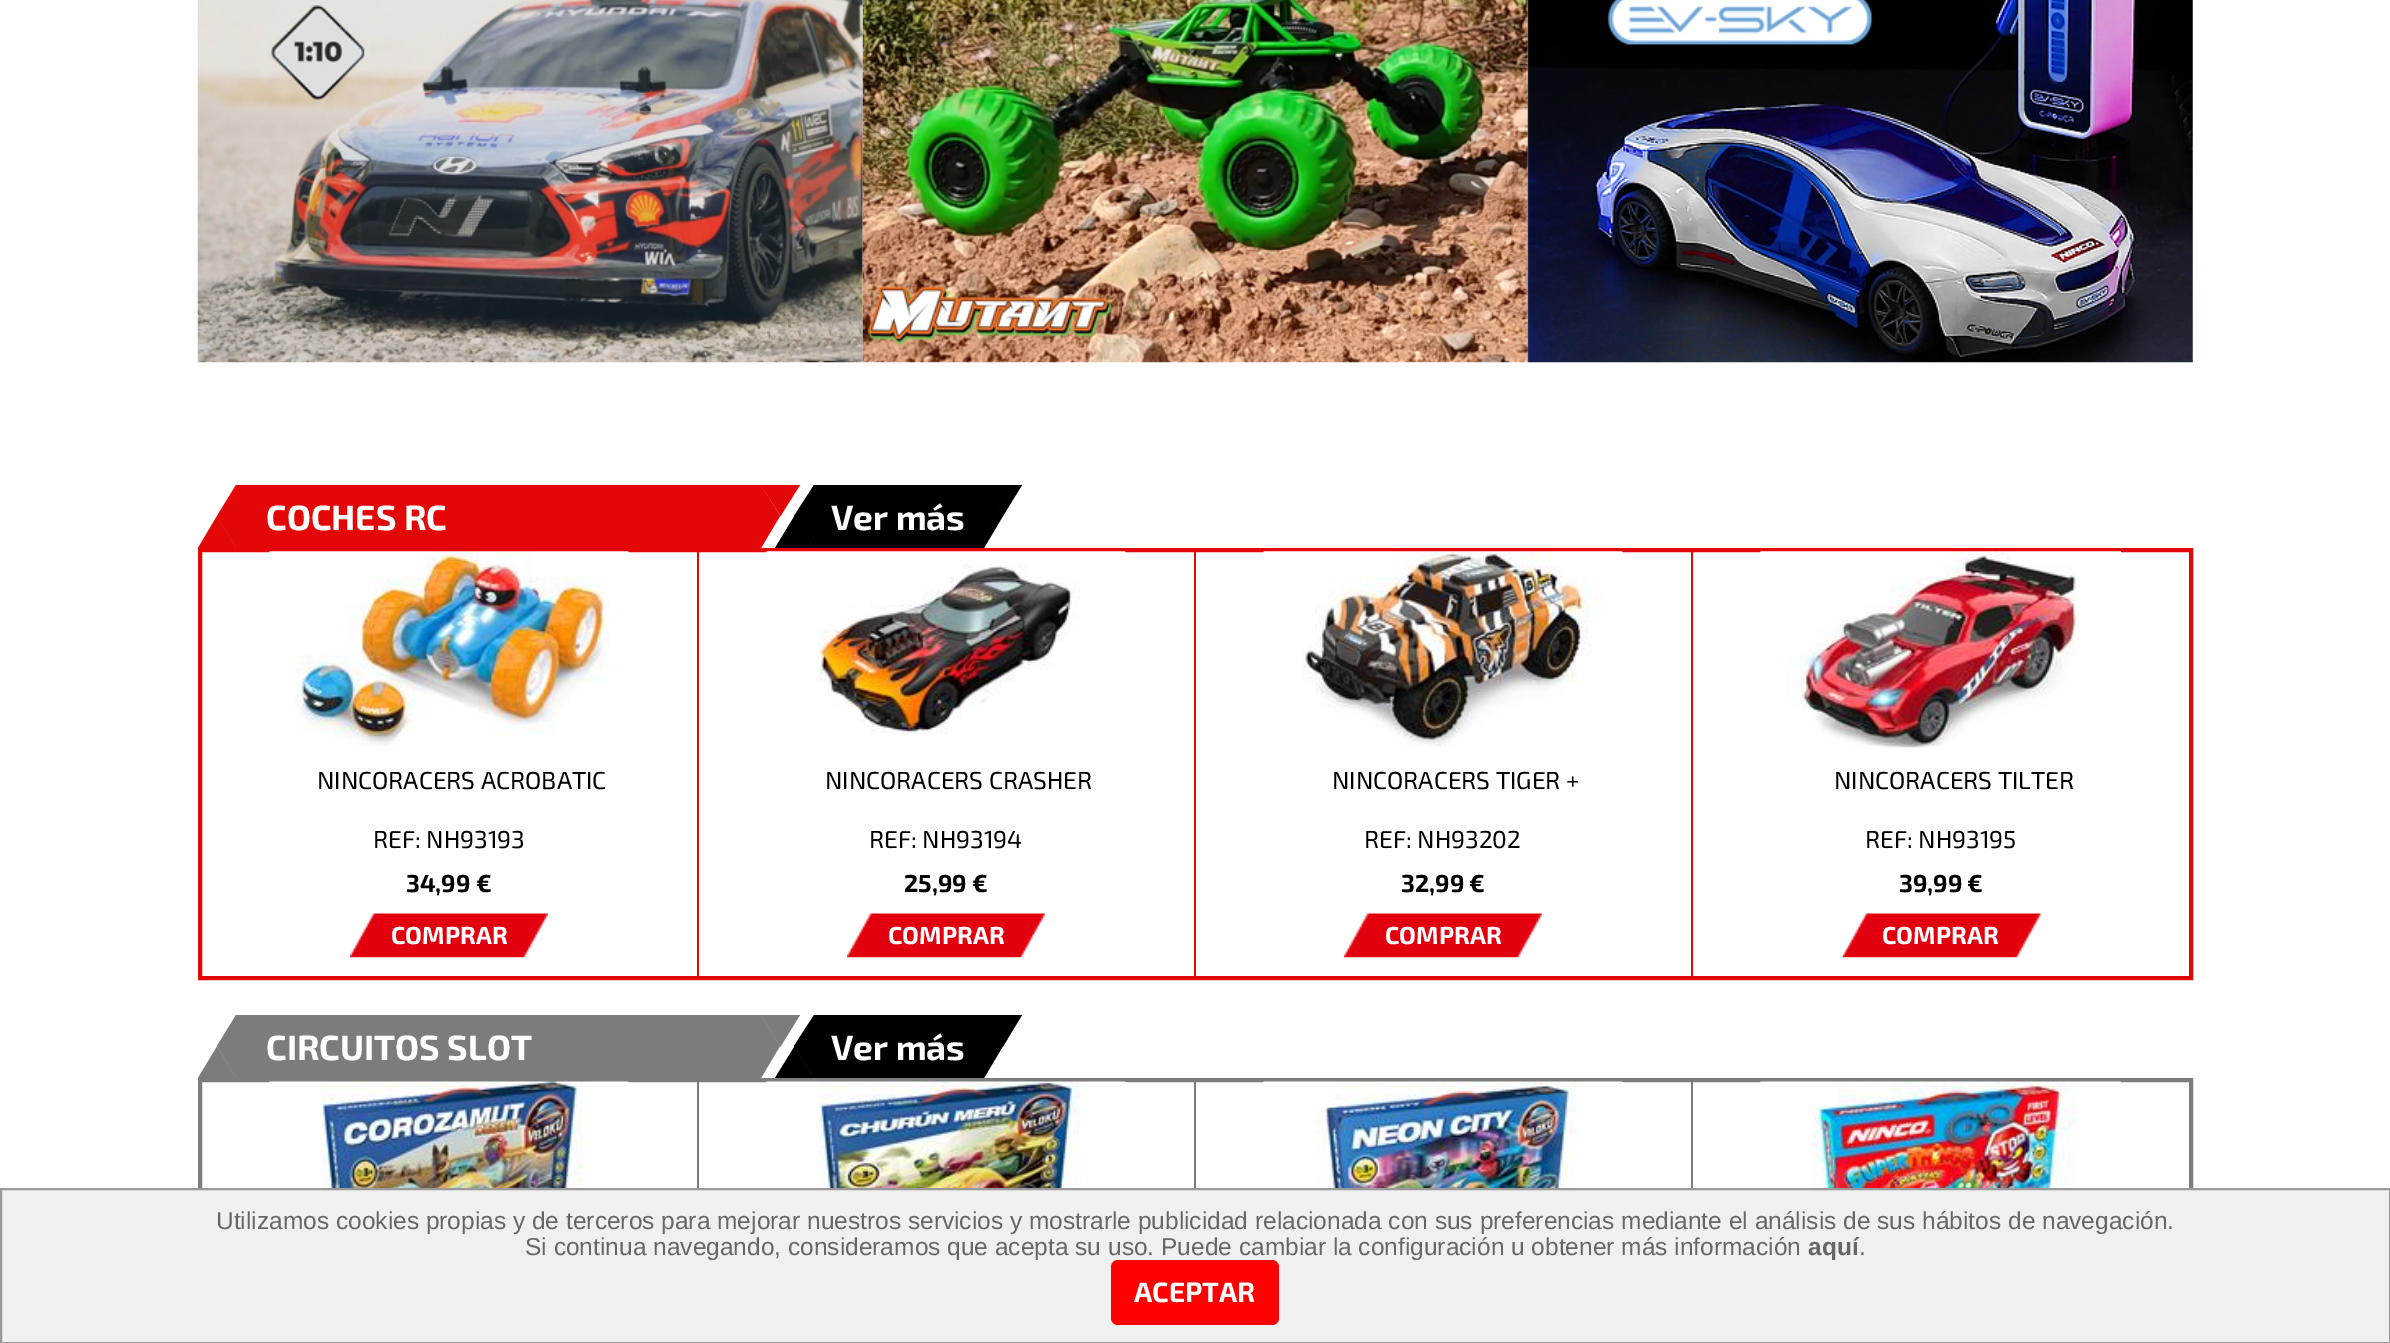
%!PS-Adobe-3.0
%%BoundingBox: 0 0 2390 1343
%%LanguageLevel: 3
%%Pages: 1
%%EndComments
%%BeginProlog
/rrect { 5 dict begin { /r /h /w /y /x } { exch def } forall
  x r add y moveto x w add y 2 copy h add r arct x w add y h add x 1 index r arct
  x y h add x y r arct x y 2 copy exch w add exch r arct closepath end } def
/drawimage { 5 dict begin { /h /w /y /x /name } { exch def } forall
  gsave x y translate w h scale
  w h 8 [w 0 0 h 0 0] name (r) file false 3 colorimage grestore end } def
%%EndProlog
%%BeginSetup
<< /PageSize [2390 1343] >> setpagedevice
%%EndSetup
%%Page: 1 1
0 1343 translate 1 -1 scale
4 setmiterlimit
1 setgray
0 0 2390 1343 rectfill
(images/1.raw) 197 0 666 363 drawimage
(images/2.raw) 862 0 666 363 drawimage
(images/3.raw) 1527 0 666 363 drawimage
0.894 0.027 0.027 setrgbcolor
newpath 236 485 moveto 236 548 lineto 217 516 lineto closepath fill
newpath 236 548 moveto 198 548 lineto 217 516 lineto closepath fill
236 485 525 63 rectfill
newpath 761 485 moveto 800 485 lineto 780.5 516 lineto closepath fill
newpath 761 548 moveto 761 485 lineto 780 516 lineto closepath fill
0 setgray
newpath 814 485 moveto 814 548 lineto 794 516 lineto closepath fill
newpath 814 548 moveto 775 548 lineto 794.5 516 lineto closepath fill
814 485 170 63 rectfill
newpath 983.5 485 moveto 1022 485 lineto 1003 516 lineto closepath fill
newpath 984 548 moveto 984 485 lineto 1003 516 lineto closepath fill
0.894 0.027 0.027 setrgbcolor
4 setlinewidth
200 550 1991 428 rectstroke
697 551 2 426 rectfill
(images/4.raw) 269 551 360 195 drawimage
(images/5.raw) 350 913 198 45 drawimage
1194 551 2 426 rectfill
(images/6.raw) 766 551 360 185 drawimage
(images/5.raw) 847 913 198 45 drawimage
1691 551 2 426 rectfill
(images/7.raw) 1263 551 360 196 drawimage
(images/5.raw) 1344 913 198 45 drawimage
(images/8.raw) 1760 551 361 197 drawimage
(images/9.raw) 1842 913 199 45 drawimage
0.486 setgray
newpath 236 1015 moveto 236 1078 lineto 217 1046 lineto closepath fill
newpath 236 1078 moveto 198 1078 lineto 217 1046.5 lineto closepath fill
236 1015 525 63 rectfill
newpath 761 1015 moveto 800 1015 lineto 780.5 1046.5 lineto closepath fill
newpath 761 1078 moveto 761 1015 lineto 780 1046 lineto closepath fill
0 setgray
newpath 814 1015 moveto 814 1078 lineto 794 1046 lineto closepath fill
newpath 814 1078 moveto 775 1078 lineto 794.5 1046.5 lineto closepath fill
814 1015 170 63 rectfill
newpath 983.5 1015 moveto 1022 1015 lineto 1003 1046.5 lineto closepath fill
newpath 984 1078 moveto 984 1015 lineto 1003 1046 lineto closepath fill
0.486 setgray
200 1080 1991 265 rectstroke
697 1082 2 106 rectfill
(images/10.raw) 269 1081 360 107 drawimage
1194 1082 2 106 rectfill
(images/11.raw) 766 1081 360 107 drawimage
1691 1082 2 106 rectfill
(images/12.raw) 1263 1081 360 107 drawimage
(images/13.raw) 1760 1081 361 107 drawimage
0.941 setgray
newpath 1 1189 moveto 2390 1189 lineto 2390 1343 lineto 1 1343 lineto closepath gsave fill grestore
0.6 setgray
2 setlinewidth
stroke
/Exo2-Bold [35 0 0 -35 0 0] selectfont
1 setgray
266 530 moveto (COCHES RC) show
831 530 moveto (Ver más) show
/Exo2-Regular [24.5 0 0 -24.5 0 0] selectfont
0 setgray
317 789 moveto (NINCORACERS ACROBATIC) show
373 848 moveto (REF: NH93193) show
/Exo2-Bold [24.5 0 0 -24.5 0 0] selectfont
406 892 moveto (34,99 €) show
1 setgray
391 944 moveto (COMPRAR) show
/Exo2-Regular [24.5 0 0 -24.5 0 0] selectfont
0 setgray
825 789 moveto (NINCORACERS CRASHER) show
869 848 moveto (REF: NH93194) show
/Exo2-Bold [24.5 0 0 -24.5 0 0] selectfont
904 892 moveto (25,99 €) show
1 setgray
888 944 moveto (COMPRAR) show
/Exo2-Regular [24.5 0 0 -24.5 0 0] selectfont
0 setgray
1332 789 moveto (NINCORACERS TIGER +) show
1364 848 moveto (REF: NH93202) show
/Exo2-Bold [24.5 0 0 -24.5 0 0] selectfont
1401 892 moveto (32,99 €) show
1 setgray
1385 944 moveto (COMPRAR) show
/Exo2-Regular [24.5 0 0 -24.5 0 0] selectfont
0 setgray
1834 789 moveto (NINCORACERS TILTER) show
1865 848 moveto (REF: NH93195) show
/Exo2-Bold [24.5 0 0 -24.5 0 0] selectfont
1899 892 moveto (39,99 €) show
1 setgray
1882 944 moveto (COMPRAR) show
/Exo2-Bold [35 0 0 -35 0 0] selectfont
266 1060 moveto (CIRCUITOS SLOT) show
831 1060 moveto (Ver más) show
/LiberationSans-Regular [24.5 0 0 -24.5 0 0] selectfont
0.4 setgray
216 1229 moveto (Utilizamos cookies propias y de terceros para mejorar nuestros servicios y mostrarle publicidad relacionada con sus preferencias mediante el análisis de sus hábitos de navegación.) show
525 1255 moveto (Si continua navegando, consideramos que acepta su uso. Puede cambiar la configuración u obtener más información) show
/LiberationSans-Bold [24.5 0 0 -24.5 0 0] selectfont
1808 1255 moveto (aquí) show
/LiberationSans-Regular [24.5 0 0 -24.5 0 0] selectfont
1859 1255 moveto (.) show
1 0 0 setrgbcolor
1111 1260 168 65 7 rrect fill
/Exo2-Bold [28 0 0 -28 0 0] selectfont
1 setgray
1134 1302 moveto (ACEPTAR) show
showpage
%%EOF
